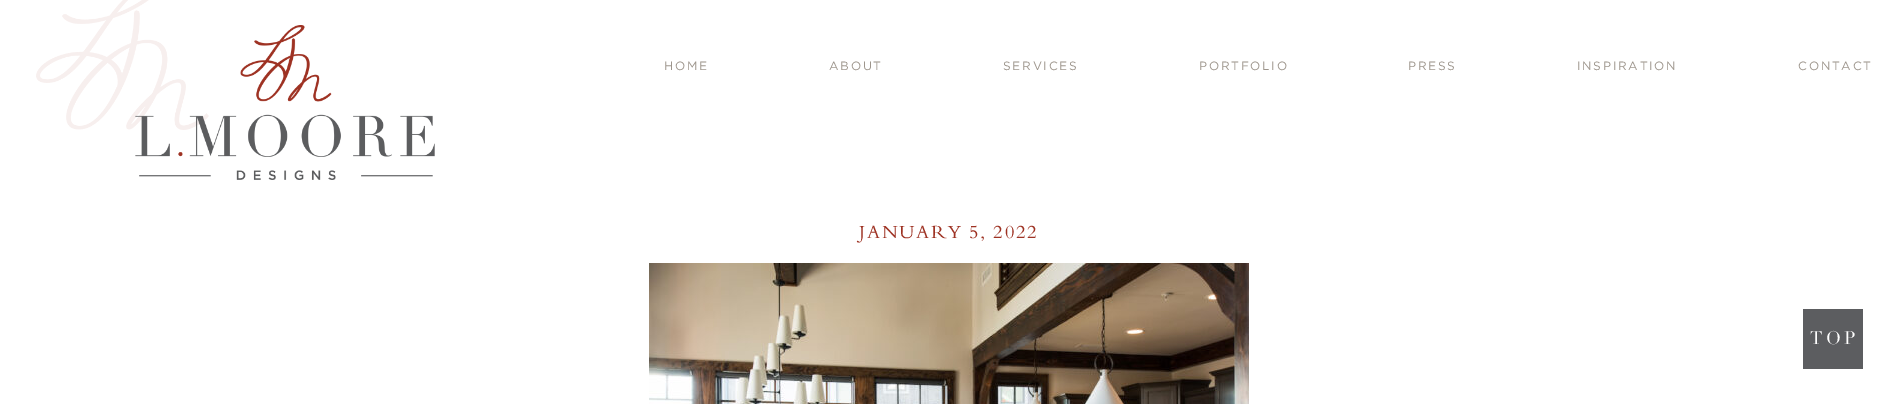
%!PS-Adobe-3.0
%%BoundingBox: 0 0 1898 404
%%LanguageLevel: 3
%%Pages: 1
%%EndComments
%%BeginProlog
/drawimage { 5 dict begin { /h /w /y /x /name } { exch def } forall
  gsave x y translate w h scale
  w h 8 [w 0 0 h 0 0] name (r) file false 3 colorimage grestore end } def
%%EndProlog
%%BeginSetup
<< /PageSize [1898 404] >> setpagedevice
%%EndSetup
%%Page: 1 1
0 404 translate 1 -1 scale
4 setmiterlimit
1 setgray
0 0 1898 404 rectfill
(images/1.raw) 36 0 173 130 drawimage
(images/2.raw) 135 25 300 155 drawimage
(images/3.raw) 649 263 600 141 drawimage
0.361 0.365 0.376 setrgbcolor
1803 309 60 60 rectfill
/Gotham-Regular [12 0 0 -12 0 0] selectfont
0.616 0.584 0.549 setrgbcolor
664 70 moveto 1.75 0 (HOME) ashow
829 70 moveto 1.75 0 (ABOUT) ashow
1003 70 moveto 1.75 0 (SERVICES) ashow
1199 70 moveto 1.75 0 (PORTFOLIO) ashow
1408 70 moveto 1.75 0 (PRESS) ashow
1577 70 moveto 1.75 0 (INSPIRATION) ashow
1798 70 moveto 1.75 0 (CONTACT) ashow
/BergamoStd-Regular [18 0 0 -18 0 0] selectfont
0.62 0.196 0.137 setrgbcolor
859 238 moveto 1.75 0 (JANUARY 5, 2022) ashow
/Didot-Regular [18 0 0 -18 0 0] selectfont
1 setgray
1810 344 moveto 3.5 0 (TOP) ashow
showpage
%%EOF
